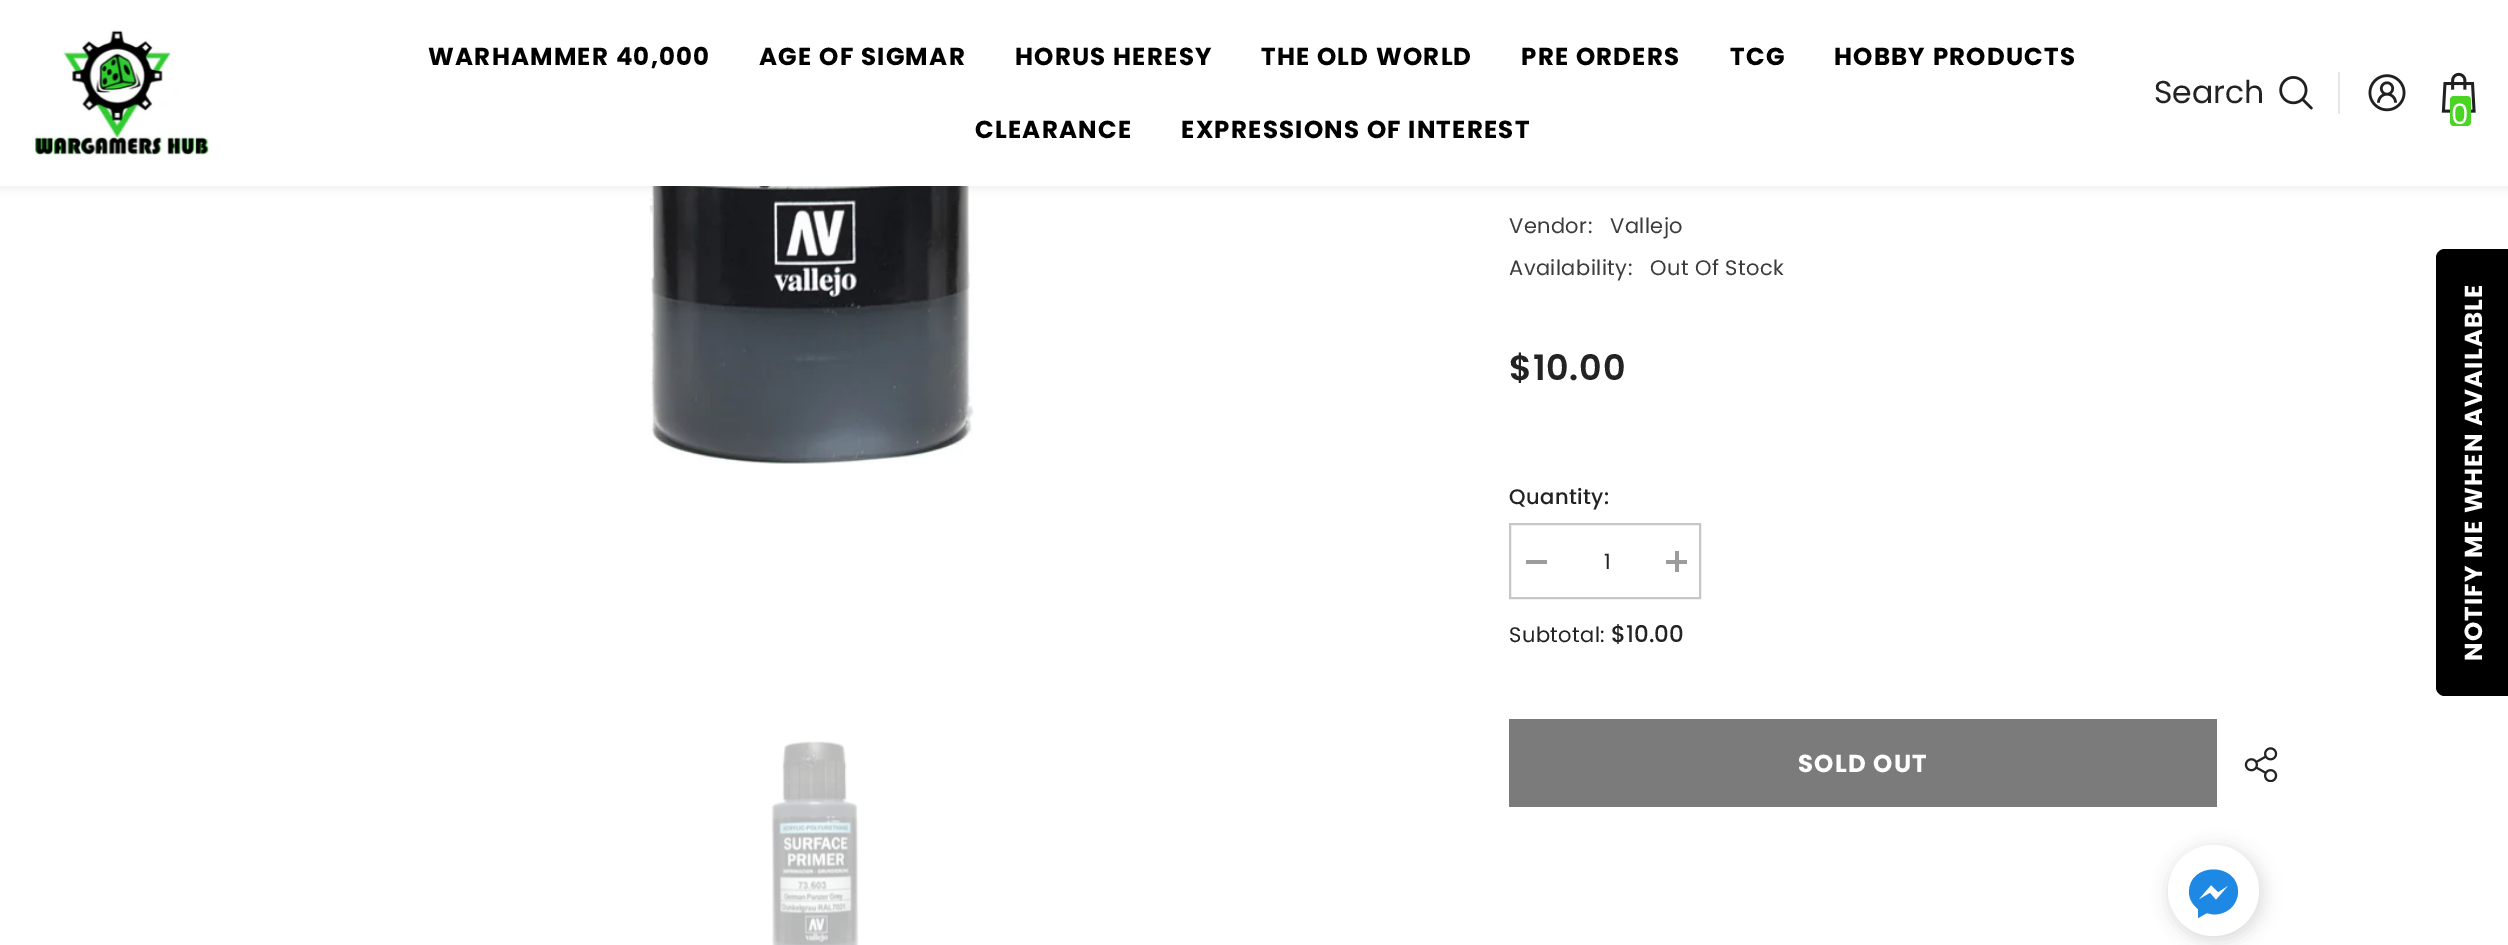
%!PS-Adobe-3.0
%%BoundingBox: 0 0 2508 945
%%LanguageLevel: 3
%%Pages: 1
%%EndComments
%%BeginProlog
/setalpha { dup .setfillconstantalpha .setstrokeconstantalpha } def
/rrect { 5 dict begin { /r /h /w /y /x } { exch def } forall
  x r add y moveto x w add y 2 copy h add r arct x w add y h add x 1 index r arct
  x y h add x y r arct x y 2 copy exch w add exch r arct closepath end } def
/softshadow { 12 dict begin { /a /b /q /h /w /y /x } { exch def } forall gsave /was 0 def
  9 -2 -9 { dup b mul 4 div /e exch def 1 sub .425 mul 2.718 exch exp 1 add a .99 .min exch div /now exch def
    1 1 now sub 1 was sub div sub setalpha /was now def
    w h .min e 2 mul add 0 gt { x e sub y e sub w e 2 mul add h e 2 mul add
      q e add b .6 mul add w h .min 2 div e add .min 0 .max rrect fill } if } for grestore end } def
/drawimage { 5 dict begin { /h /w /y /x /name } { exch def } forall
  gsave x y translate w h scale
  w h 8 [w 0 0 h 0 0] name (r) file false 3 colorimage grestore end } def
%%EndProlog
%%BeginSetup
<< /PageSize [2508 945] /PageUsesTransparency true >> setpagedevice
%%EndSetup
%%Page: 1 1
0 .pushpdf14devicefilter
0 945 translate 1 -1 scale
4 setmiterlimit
1 setgray
0 0 2508 945 rectfill
(images/5.raw) 649 186 325 278 drawimage
0.118 setgray
0 2 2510 185 0 5 0.1 softshadow
1 setgray
0 0 2508 186 rectfill
(images/1.raw) 35 30 174 125 drawimage
(images/2.raw) 2279 76 34 34 drawimage
0.902 setgray
2338 72 2 42 rectfill
(images/3.raw) 2368 74 38 38 drawimage
(images/4.raw) 2441 72 35 41 drawimage
0.29 0.835 0.145 setrgbcolor
2450 96 21 30 4 rrect fill
(images/6.raw) 771 741 88 204 drawimage
0.78 setgray
2 setlinewidth
1510 524 190 74 rectstroke
0.612 setgray
1526 560 21 4 rectfill
1666 560 21 4 rectfill
1675 551 4 21 rectfill
0.482 setgray
1509 719 708 88 rectfill
(images/7.raw) 2244 747 34 35 drawimage
0 setgray
newpath 2436 687 moveto 2436 258 lineto 2436 253 2440 249 2445 249 curveto 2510 249 lineto 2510 696 lineto 2445 696 lineto 2440 696 2436 692 2436 687 curveto closepath fill
2168 849 91 91 45.5 9 0.05 softshadow
2168 845 98 98 49 8 0.07 softshadow
1 setgray
newpath 2213.5 890.5 45.5 0 360 arc closepath fill
0.118 0.533 0.898 setrgbcolor
newpath 2189 892 moveto 2189 862 2238 862 2238 892 curveto 2238 898 2235 904 2231 908 curveto 2224 914 2215 916 2207 913 curveto 2198 918 lineto 2198 909 lineto 2193 905 2189 899 2189 892 curveto closepath 2210 893 moveto 2216 900 lineto 2229 885 lineto 2218 892 lineto 2211 885 lineto 2198 900 lineto closepath eofill
/Poppins-Bold [24.5 0 0 -24.5 0 0] selectfont
0 setgray
428 65 moveto 1.25 0 (WARHAMMER 40,000) ashow
759 65 moveto 1.25 0 (AGE OF SIGMAR) ashow
1015 65 moveto 1.25 0 (HORUS HERESY) ashow
1261 65 moveto 1.25 0 (THE OLD WORLD) ashow
1521 65 moveto 1.25 0 (PRE ORDERS) ashow
1730 65 moveto 1.25 0 (TCG) ashow
1834 65 moveto 1.25 0 (HOBBY PRODUCTS) ashow
975 138 moveto 1.25 0 (CLEARANCE) ashow
1181 138 moveto 1.25 0 (EXPRESSIONS OF INTEREST) ashow
/Poppins-Regular [31.5 0 0 -31.5 0 0] selectfont
0.137 setgray
2154 103 moveto (Search) show
/Poppins-Regular [28 0 0 -28 0 0] selectfont
1 setgray
2451 124 moveto (0) show
/Poppins-Regular [21 0 0 -21 0 0] selectfont
0.235 setgray
1509 233 moveto 0.4 0 (Vendor:) ashow
1610 233 moveto 0.4 0 (Vallejo) ashow
1509 275 moveto 0.4 0 (Availability:) ashow
1650 275 moveto 0.4 0 (Out Of Stock) ashow
/Poppins-SemiBold [35 0 0 -35 0 0] selectfont
0.137 setgray
1509 380 moveto 0.75 0 ($10.00) ashow
/Poppins-Medium [21 0 0 -21 0 0] selectfont
1509 504 moveto 0.4 0 (Quantity:) ashow
/Poppins-Regular [21 0 0 -21 0 0] selectfont
1604 569 moveto 0.4 0 (1) ashow
1509 642 moveto 0.4 0 (Subtotal:) ashow
/Poppins-Medium [23 0 0 -23 0 0] selectfont
1611 642 moveto ($10.00) show
/Poppins-Bold [24.5 0 0 -24.5 0 0] selectfont
1 setgray
1798 772 moveto 1.25 0 (SOLD OUT) ashow
gsave 2482 661 translate -90 rotate 0 0 moveto 1.25 0 (NOTIFY ME WHEN AVAILABLE) ashow grestore
.poppdf14devicefilter showpage
%%EOF
